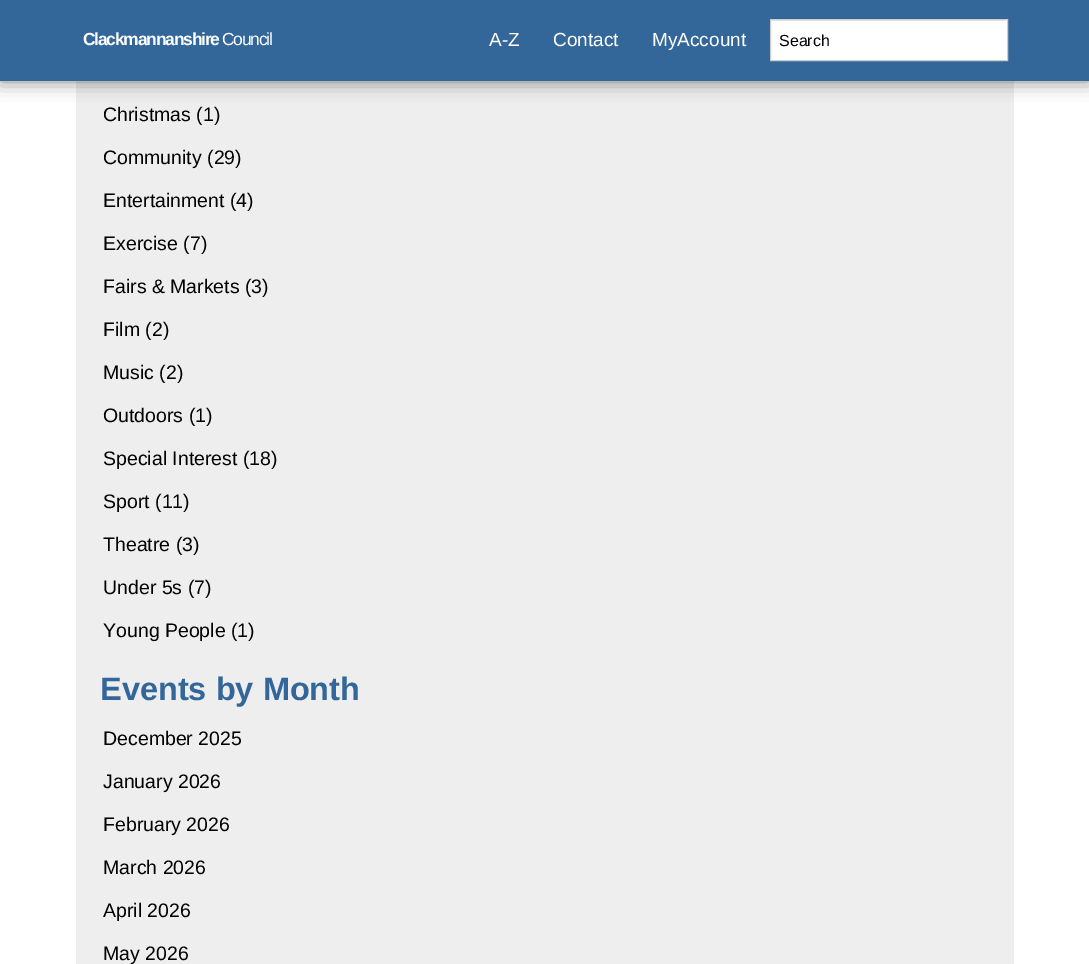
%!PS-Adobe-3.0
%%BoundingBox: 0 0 1089 964
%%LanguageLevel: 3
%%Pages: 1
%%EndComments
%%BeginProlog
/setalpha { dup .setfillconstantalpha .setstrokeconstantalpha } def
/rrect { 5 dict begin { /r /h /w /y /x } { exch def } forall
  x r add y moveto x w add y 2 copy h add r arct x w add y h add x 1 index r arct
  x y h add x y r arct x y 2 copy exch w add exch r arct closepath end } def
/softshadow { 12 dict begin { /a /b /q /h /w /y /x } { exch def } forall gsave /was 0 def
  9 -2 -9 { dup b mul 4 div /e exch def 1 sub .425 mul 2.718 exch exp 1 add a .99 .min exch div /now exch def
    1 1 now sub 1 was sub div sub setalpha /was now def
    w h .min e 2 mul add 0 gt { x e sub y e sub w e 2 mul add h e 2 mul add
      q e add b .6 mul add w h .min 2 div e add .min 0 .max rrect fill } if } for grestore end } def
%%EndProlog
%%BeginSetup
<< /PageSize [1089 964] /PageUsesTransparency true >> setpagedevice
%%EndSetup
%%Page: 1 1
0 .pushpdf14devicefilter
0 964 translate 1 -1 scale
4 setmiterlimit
1 setgray
0 0 1089 964 rectfill
0.933 setgray
76 81 938 883 rectfill
0 setgray
0 0 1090 81 0 9.5 0.5 softshadow
0.2 0.4 0.6 setrgbcolor
0 0 1089 81 rectfill
1 setgray
771 20 236 40 rectfill
0.925 setgray
771 20 235 1 rectfill
0.8 setgray
770.5 19.5 237 41 rectstroke
/LiberationSans-Bold [17.5 0 0 -17.5 0 0] selectfont
1 setgray
83 45 moveto -1.25 0 (Clackmannanshire) ashow
/LiberationSans-Regular [17.5 0 0 -17.5 0 0] selectfont
222 45 moveto -1.25 0 (Council) ashow
/LiberationSans-Regular [19 0 0 -19 0 0] selectfont
489 46 moveto (A-Z) show
553 46 moveto (Contact) show
652 46 moveto (MyAccount) show
/LiberationSans-Regular [16 0 0 -16 0 0] selectfont
0 setgray
779 46 moveto (Search) show
/LiberationSans-Regular [19.5 0 0 -19.5 0 0] selectfont
103 121 moveto (Christmas \(1\)) show
103 164 moveto (Community \(29\)) show
103 207 moveto (Entertainment \(4\)) show
103 250 moveto (Exercise \(7\)) show
103 293 moveto (Fairs & Markets \(3\)) show
103 336 moveto (Film \(2\)) show
103 379 moveto (Music \(2\)) show
103 422 moveto (Outdoors \(1\)) show
103 465 moveto (Special Interest \(18\)) show
103 508 moveto (Sport \(11\)) show
103 551 moveto (Theatre \(3\)) show
103 594 moveto (Under 5s \(7\)) show
103 637 moveto (Young People \(1\)) show
/LiberationSans-Bold [32.5 0 0 -32.5 0 0] selectfont
0.2 0.4 0.6 setrgbcolor
100 700 moveto (Events by Month) show
/LiberationSans-Regular [19.5 0 0 -19.5 0 0] selectfont
0 setgray
103 745 moveto (December 2025) show
103 788 moveto (January 2026) show
103 831 moveto (February 2026) show
103 874 moveto (March 2026) show
103 917 moveto (April 2026) show
103 960 moveto (May 2026) show
.poppdf14devicefilter showpage
%%EOF
